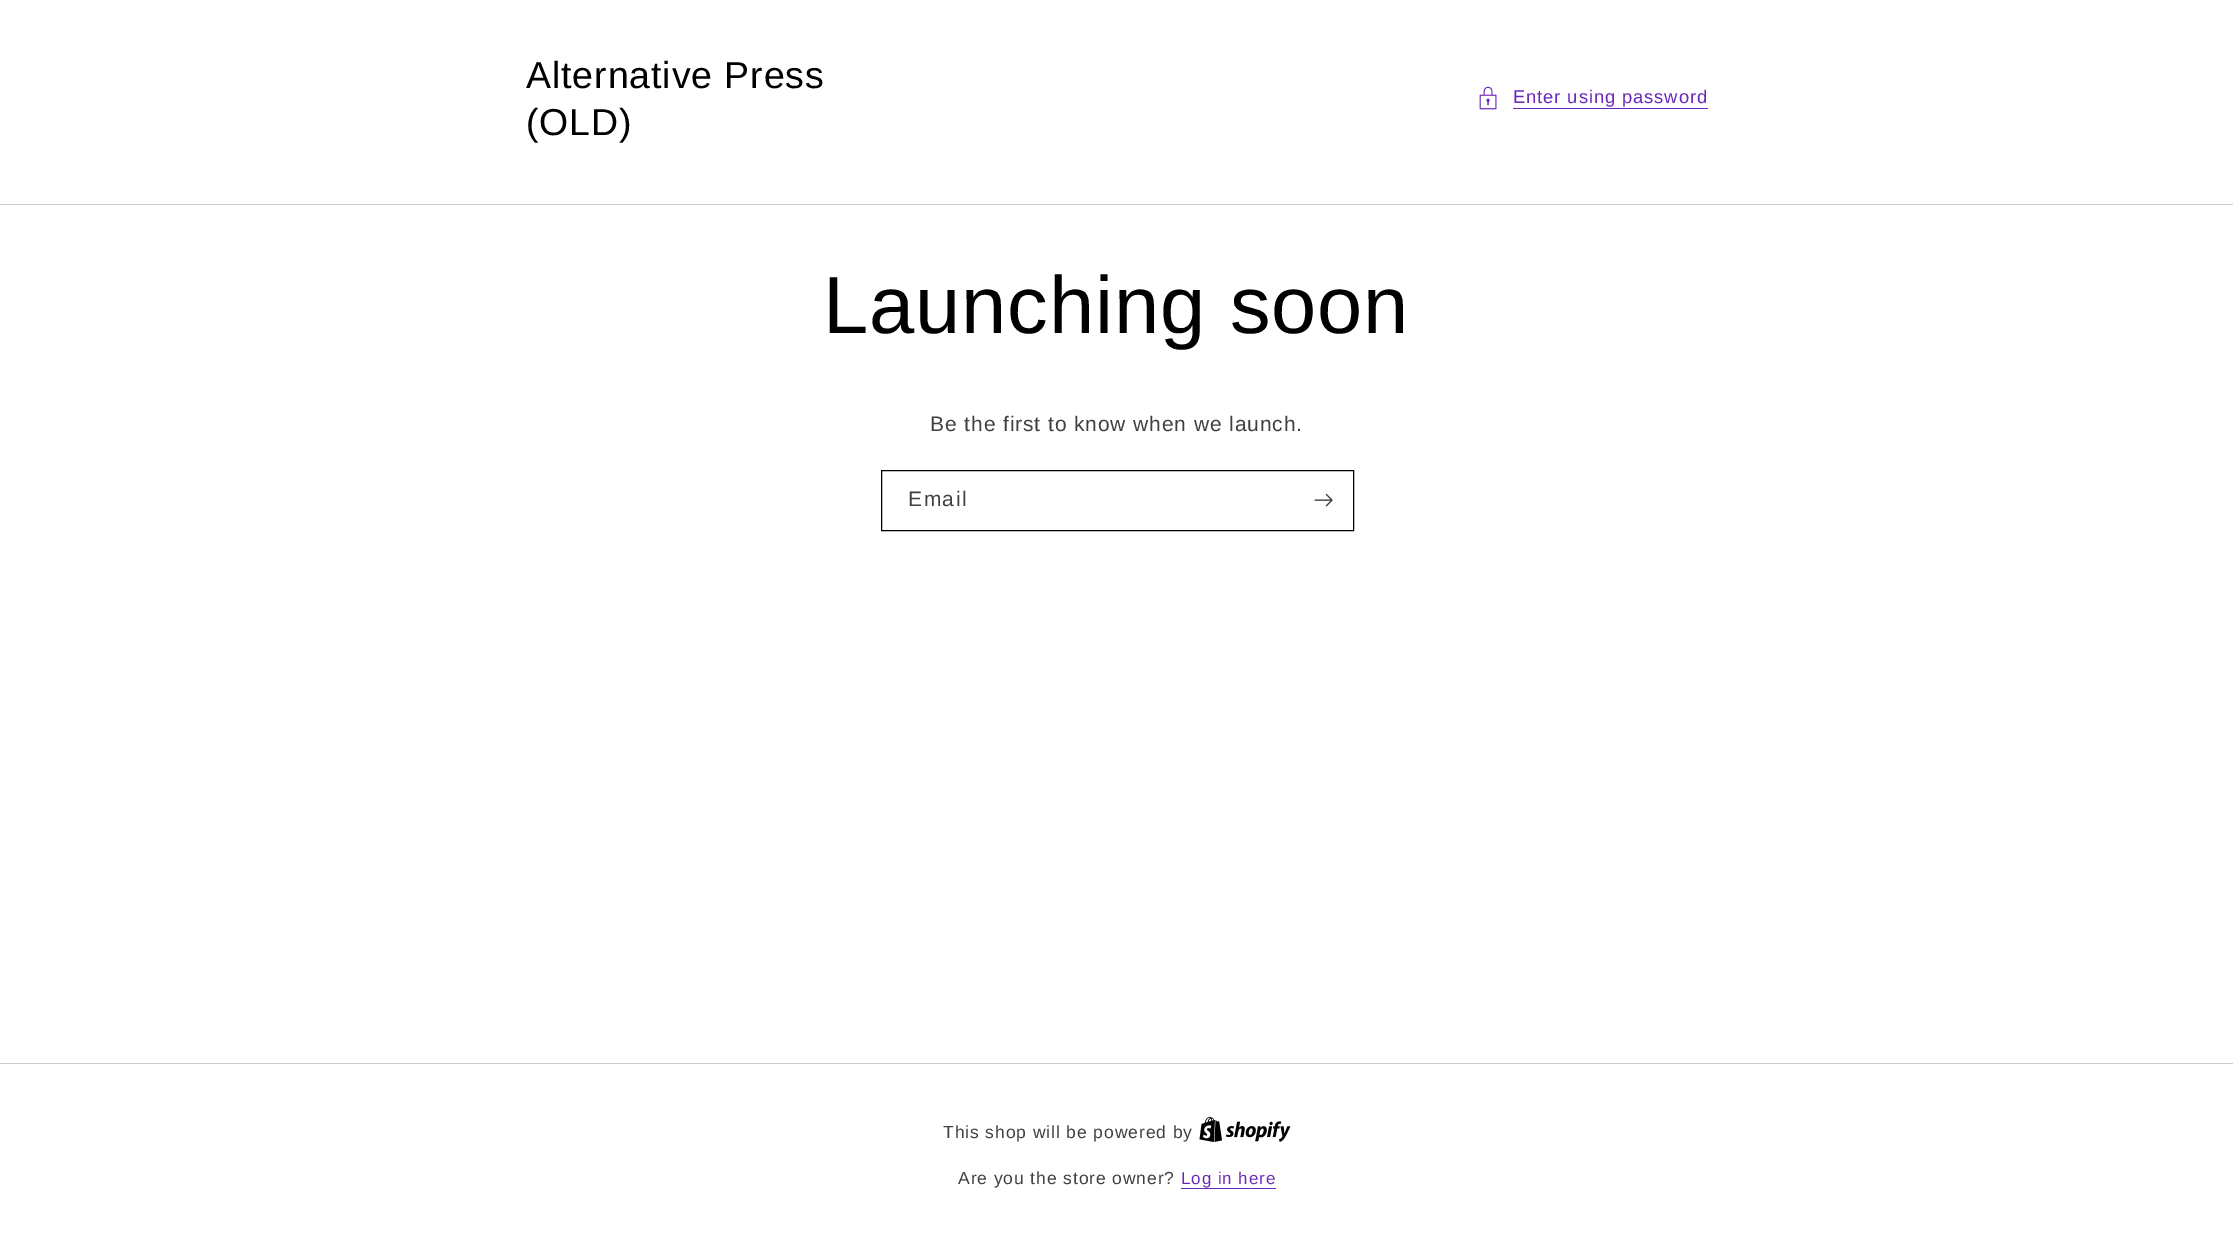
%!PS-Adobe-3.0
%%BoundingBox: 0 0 2233 1246
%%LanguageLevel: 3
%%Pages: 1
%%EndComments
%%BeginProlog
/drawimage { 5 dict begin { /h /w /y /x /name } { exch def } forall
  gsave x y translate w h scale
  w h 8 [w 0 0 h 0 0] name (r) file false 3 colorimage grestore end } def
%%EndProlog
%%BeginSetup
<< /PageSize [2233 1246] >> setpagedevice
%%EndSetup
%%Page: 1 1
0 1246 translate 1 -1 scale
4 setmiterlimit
1 setgray
0 0 2233 1246 rectfill
(images/1.raw) 1479 86 18 24 drawimage
0.42 0.149 0.729 setrgbcolor
1513 108 195 1 rectfill
0.8 setgray
0 204 2233 1 rectfill
0 setgray
881.5 470.5 472 60 rectstroke
(images/2.raw) 1314 493 19 14 drawimage
0.8 setgray
0 1063 2233 1 rectfill
(images/3.raw) 1199 1116 92 26 drawimage
0.42 0.149 0.729 setrgbcolor
1181 1188 95 1 rectfill
/LiberationSans-Regular [37.5 0 0 -37.5 0 0] selectfont
0 setgray
526 88 moveto 0.9 0 (Alternative Press) ashow
526 135 moveto 0.9 0 (\(OLD\)) ashow
/LiberationSans-Regular [18.4 0 0 -18.4 0 0] selectfont
0.42 0.149 0.729 setrgbcolor
1513 103 moveto 0.9 0 (Enter using password) ashow
/LiberationSans-Regular [81.25 0 0 -81.25 0 0] selectfont
0 setgray
823 333 moveto 0.9 0 (Launching soon) ashow
/LiberationSans-Regular [21 0 0 -21 0 0] selectfont
0.251 setgray
930 431 moveto 0.9 0 (Be the first to know when we launch.) ashow
908 506 moveto 1.5 0 (Email) ashow
/LiberationSans-Regular [17.5 0 0 -17.5 0 0] selectfont
943 1138 moveto 0.9 0 (This shop will be powered by) ashow
958 1184 moveto 0.9 0 (Are you the store owner?) ashow
/LiberationSans-Regular [17 0 0 -17 0 0] selectfont
0.42 0.149 0.729 setrgbcolor
1181 1184 moveto 0.9 0 (Log in here) ashow
showpage
%%EOF
